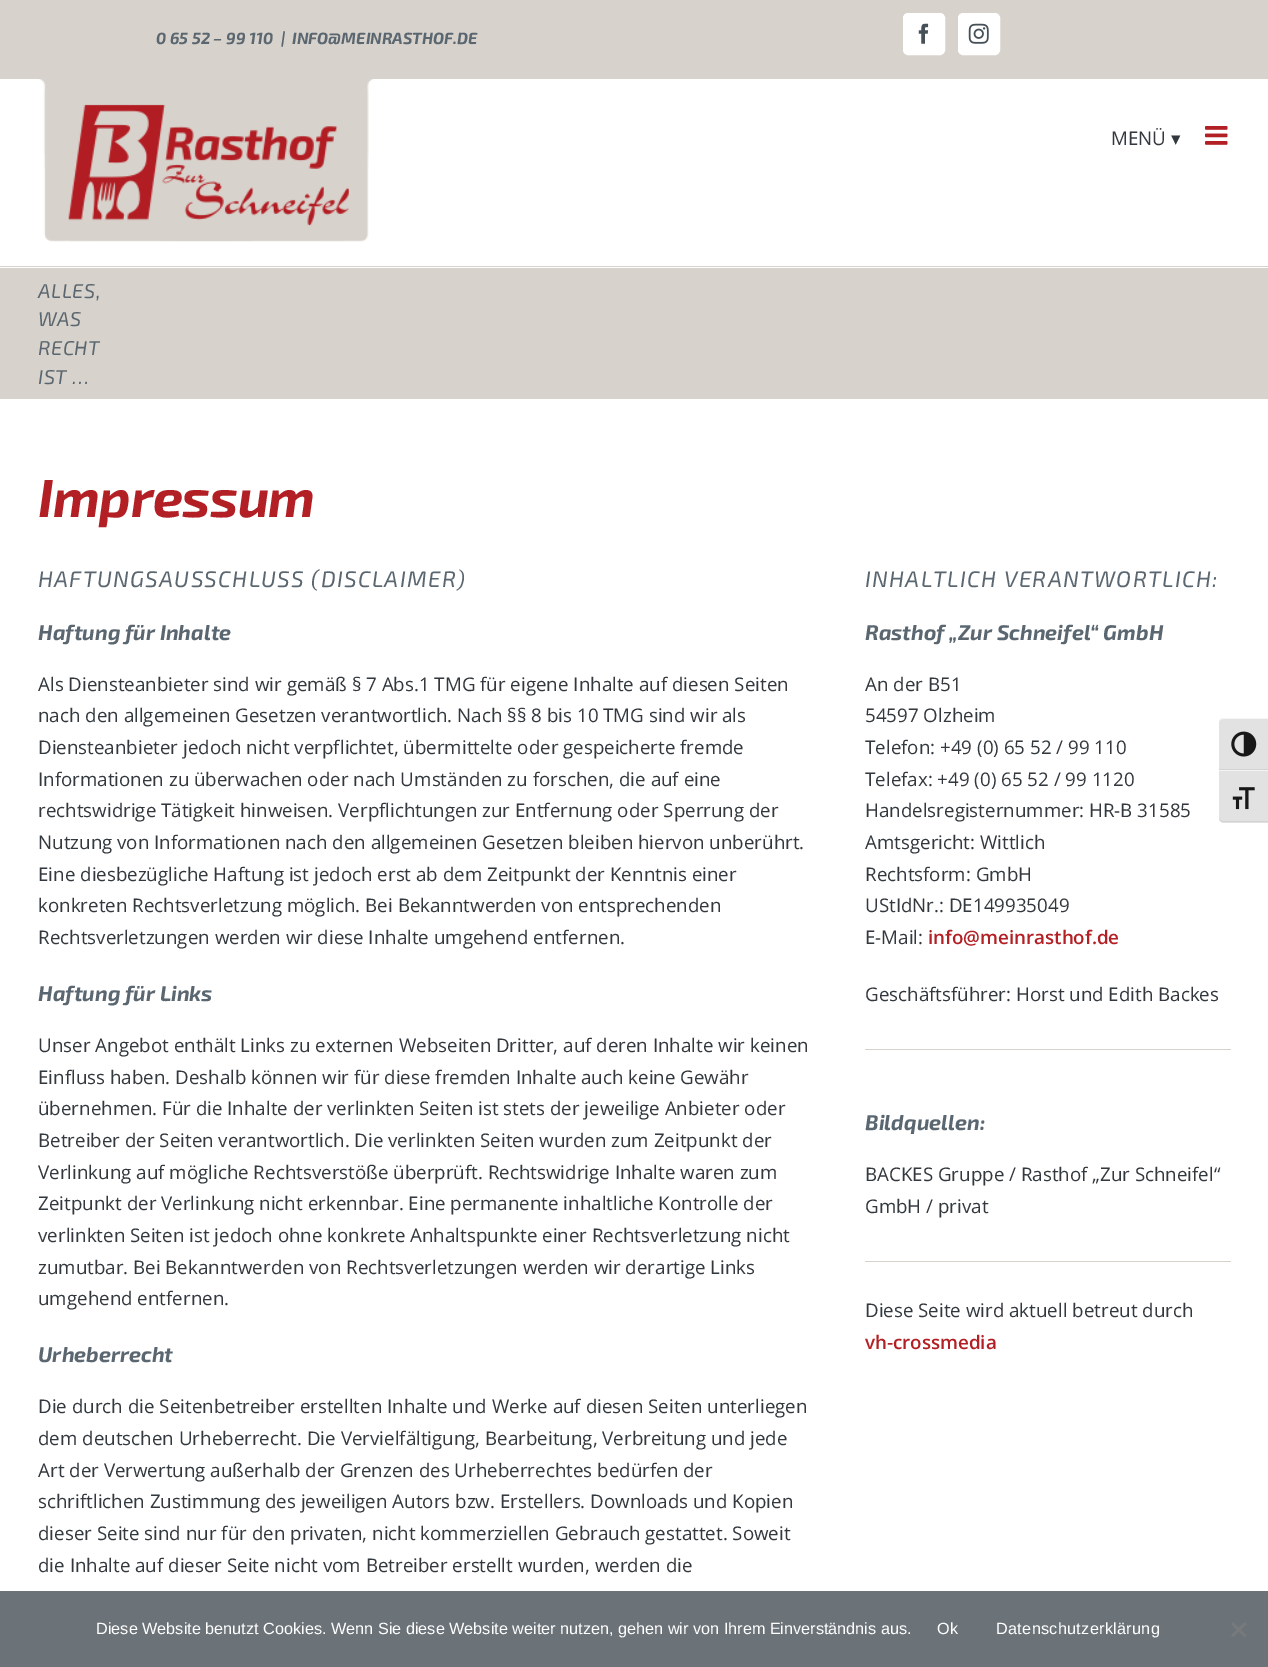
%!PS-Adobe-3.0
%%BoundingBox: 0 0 1268 1667
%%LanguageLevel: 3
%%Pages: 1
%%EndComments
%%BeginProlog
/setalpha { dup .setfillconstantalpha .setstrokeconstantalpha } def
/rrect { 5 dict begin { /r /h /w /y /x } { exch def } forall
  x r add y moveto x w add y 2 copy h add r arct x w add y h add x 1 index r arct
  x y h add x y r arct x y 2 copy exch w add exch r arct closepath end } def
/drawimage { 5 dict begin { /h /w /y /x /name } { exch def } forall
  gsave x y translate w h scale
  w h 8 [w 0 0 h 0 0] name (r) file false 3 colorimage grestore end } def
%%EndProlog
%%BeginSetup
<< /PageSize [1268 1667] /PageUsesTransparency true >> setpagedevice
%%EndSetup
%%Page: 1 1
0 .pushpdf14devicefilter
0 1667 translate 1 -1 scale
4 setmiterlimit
1 setgray
0 0 1268 1667 rectfill
0.843 0.824 0.796 setrgbcolor
0 0 1268 79 rectfill
1 setgray
903.5 13.5 41 41 4.5 rrect gsave fill grestore
stroke
(images/1.raw) 918 23 11 21 drawimage
958.5 13.5 41 41 4.5 rrect gsave fill grestore
stroke
(images/2.raw) 968 23 21 21 drawimage
0.843 0.824 0.796 setrgbcolor
0 266 1268 1 rectfill
(images/3.raw) 39 79 335 163 drawimage
(images/4.raw) 1205 126 23 19 drawimage
0 268 1268 131 rectfill
865 1049 366 1 rectfill
865 1261 366 1 rectfill
0.886 setgray
newpath 1224 718 moveto 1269 718 lineto 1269 770 lineto 1219 770 lineto 1219 723 lineto 1219 720 1221 718 1224 718 curveto closepath fill
0.961 setgray
newpath 1224 718 moveto 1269 718 lineto 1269 719 lineto 1224 719 lineto 1221 719 1219 720 1219 722 curveto 1219 720 1221 718 1224 718 curveto closepath fill
0.824 setgray
1219 769 49 1 rectfill
(images/5.raw) 1231 731 26 26 drawimage
0.886 setgray
newpath 1219 770 moveto 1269 770 lineto 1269 823 lineto 1224 823 lineto 1221 823 1219 821 1219 818 curveto closepath fill
0.961 setgray
1219 770 49 1 rectfill
0.824 setgray
newpath 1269 821 moveto 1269 822 lineto 1224 822 lineto 1221 822 1219 820 1219 818 curveto 1219 820 1221 821 1224 821 curveto closepath fill
(images/6.raw) 1232 787 23 23 drawimage
0.8 setalpha
0.275 0.314 0.341 setrgbcolor
0 1591 1268 76 rectfill
1 setalpha
0.463 0.478 0.486 setrgbcolor
newpath 1244.5 1622 moveto 1246.5 1624 lineto 1233 1637 lineto 1231 1635.5 lineto closepath fill
newpath 1231 1624 moveto 1233 1622 lineto 1246.5 1635.5 lineto 1244.5 1637 lineto closepath fill
/Exo2-BoldItalic [16.25 0 0 -16.25 0 0] selectfont
0.357 0.404 0.439 setrgbcolor
156 44 moveto (0 65 52 – 99 110) show
281 44 moveto (|) show
292 44 moveto (INFO@MEINRASTHOF.DE) show
/OpenSans-Regular [18.75 0 0 -18.75 0 0] selectfont
0.196 0.22 0.239 setrgbcolor
1111 145 moveto (MENÜ) show
/DejaVuSans-Regular [18.75 0 0 -18.75 0 0] selectfont
1171 145 moveto (▾) show
/Exo2-Italic [20 0 0 -20 0 0] selectfont
0.357 0.404 0.439 setrgbcolor
38 298 moveto 0.5 0 (ALLES,) ashow
38 326 moveto 0.5 0 (WAS) ashow
38 355 moveto 0.5 0 (RECHT) ashow
38 384 moveto 0.5 0 (IST …) ashow
/Exo2-BoldItalic [53.5 0 0 -53.5 0 0] selectfont
0.698 0.122 0.141 setrgbcolor
38 517 moveto -0.6 0 (Impressum) ashow
/Exo2-Italic [22.5 0 0 -22.5 0 0] selectfont
0.357 0.404 0.439 setrgbcolor
38 587 moveto 1.25 0 (HAFTUNGSAUSSCHLUSS \(DISCLAIMER\)) ashow
/Exo2-BoldItalic [21.25 0 0 -21.25 0 0] selectfont
38 640 moveto (Haftung für Inhalte) show
/OpenSans-Regular [18.75 0 0 -18.75 0 0] selectfont
0.196 0.22 0.239 setrgbcolor
38 691 moveto (Als Diensteanbieter sind wir gemäß § 7 Abs.1 TMG für eigene Inhalte auf diesen Seiten) show
38 722 moveto (nach den allgemeinen Gesetzen verantwortlich. Nach §§ 8 bis 10 TMG sind wir als) show
38 754 moveto (Diensteanbieter jedoch nicht verpflichtet, übermittelte oder gespeicherte fremde) show
38 786 moveto (Informationen zu überwachen oder nach Umständen zu forschen, die auf eine) show
38 817 moveto (rechtswidrige Tätigkeit hinweisen. Verpflichtungen zur Entfernung oder Sperrung der) show
38 849 moveto (Nutzung von Informationen nach den allgemeinen Gesetzen bleiben hiervon unberührt.) show
38 881 moveto (Eine diesbezügliche Haftung ist jedoch erst ab dem Zeitpunkt der Kenntnis einer) show
38 912 moveto (konkreten Rechtsverletzung möglich. Bei Bekanntwerden von entsprechenden) show
38 944 moveto (Rechtsverletzungen werden wir diese Inhalte umgehend entfernen.) show
/Exo2-BoldItalic [21.25 0 0 -21.25 0 0] selectfont
0.357 0.404 0.439 setrgbcolor
38 1001 moveto (Haftung für Links) show
/OpenSans-Regular [18.75 0 0 -18.75 0 0] selectfont
0.196 0.22 0.239 setrgbcolor
38 1052 moveto (Unser Angebot enthält Links zu externen Webseiten Dritter, auf deren Inhalte wir keinen) show
38 1084 moveto (Einfluss haben. Deshalb können wir für diese fremden Inhalte auch keine Gewähr) show
38 1115 moveto (übernehmen. Für die Inhalte der verlinkten Seiten ist stets der jeweilige Anbieter oder) show
38 1147 moveto (Betreiber der Seiten verantwortlich. Die verlinkten Seiten wurden zum Zeitpunkt der) show
38 1179 moveto (Verlinkung auf mögliche Rechtsverstöße überprüft. Rechtswidrige Inhalte waren zum) show
38 1210 moveto (Zeitpunkt der Verlinkung nicht erkennbar. Eine permanente inhaltliche Kontrolle der) show
38 1242 moveto (verlinkten Seiten ist jedoch ohne konkrete Anhaltspunkte einer Rechtsverletzung nicht) show
38 1274 moveto (zumutbar. Bei Bekanntwerden von Rechtsverletzungen werden wir derartige Links) show
38 1305 moveto (umgehend entfernen.) show
/Exo2-BoldItalic [21.25 0 0 -21.25 0 0] selectfont
0.357 0.404 0.439 setrgbcolor
38 1362 moveto (Urheberrecht) show
/OpenSans-Regular [18.75 0 0 -18.75 0 0] selectfont
0.196 0.22 0.239 setrgbcolor
38 1413 moveto (Die durch die Seitenbetreiber erstellten Inhalte und Werke auf diesen Seiten unterliegen) show
38 1445 moveto (dem deutschen Urheberrecht. Die Vervielfältigung, Bearbeitung, Verbreitung und jede) show
38 1477 moveto (Art der Verwertung außerhalb der Grenzen des Urheberrechtes bedürfen der) show
38 1508 moveto (schriftlichen Zustimmung des jeweiligen Autors bzw. Erstellers. Downloads und Kopien) show
38 1540 moveto (dieser Seite sind nur für den privaten, nicht kommerziellen Gebrauch gestattet. Soweit) show
38 1572 moveto (die Inhalte auf dieser Seite nicht vom Betreiber erstellt wurden, werden die) show
/Exo2-Italic [22.5 0 0 -22.5 0 0] selectfont
0.357 0.404 0.439 setrgbcolor
865 587 moveto 1.25 0 (INHALTLICH VERANTWORTLICH:) ashow
/Exo2-BoldItalic [21.25 0 0 -21.25 0 0] selectfont
865 640 moveto (Rasthof „Zur Schneifel“ GmbH) show
/OpenSans-Regular [18.75 0 0 -18.75 0 0] selectfont
0.196 0.22 0.239 setrgbcolor
865 691 moveto (An der B51) show
865 722 moveto (54597 Olzheim) show
865 754 moveto (Telefon: +49 \(0\) 65 52 / 99 110) show
865 786 moveto (Telefax: +49 \(0\) 65 52 / 99 1120) show
865 817 moveto (Handelsregisternummer: HR-B 31585) show
865 849 moveto (Amtsgericht: Wittlich) show
865 881 moveto (Rechtsform: GmbH) show
865 912 moveto (UStIdNr.: DE149935049) show
865 944 moveto (E-Mail:) show
/OpenSans-SemiBold [18.75 0 0 -18.75 0 0] selectfont
0.698 0.122 0.141 setrgbcolor
928 944 moveto (info@meinrasthof.de) show
/OpenSans-Regular [18.75 0 0 -18.75 0 0] selectfont
0.196 0.22 0.239 setrgbcolor
865 1001 moveto (Geschäftsführer: Horst und Edith Backes) show
/Exo2-BoldItalic [21.25 0 0 -21.25 0 0] selectfont
0.357 0.404 0.439 setrgbcolor
865 1130 moveto (Bildquellen:) show
/OpenSans-Regular [18.75 0 0 -18.75 0 0] selectfont
0.196 0.22 0.239 setrgbcolor
865 1181 moveto (BACKES Gruppe / Rasthof „Zur Schneifel“) show
865 1213 moveto (GmbH / privat) show
865 1317 moveto (Diese Seite wird aktuell betreut durch) show
/OpenSans-SemiBold [18.75 0 0 -18.75 0 0] selectfont
0.698 0.122 0.141 setrgbcolor
865 1349 moveto (vh-crossmedia) show
/LiberationSans-Regular [16.25 0 0 -16.25 0 0] selectfont
1 setgray
96 1634 moveto (Diese Website benutzt Cookies. Wenn Sie diese Website weiter nutzen, gehen wir von Ihrem Einverständnis aus.) show
937 1634 moveto 0.3 0 (Ok) ashow
996 1634 moveto 0.3 0 (Datenschutzerklärung) ashow
.poppdf14devicefilter showpage
%%EOF
